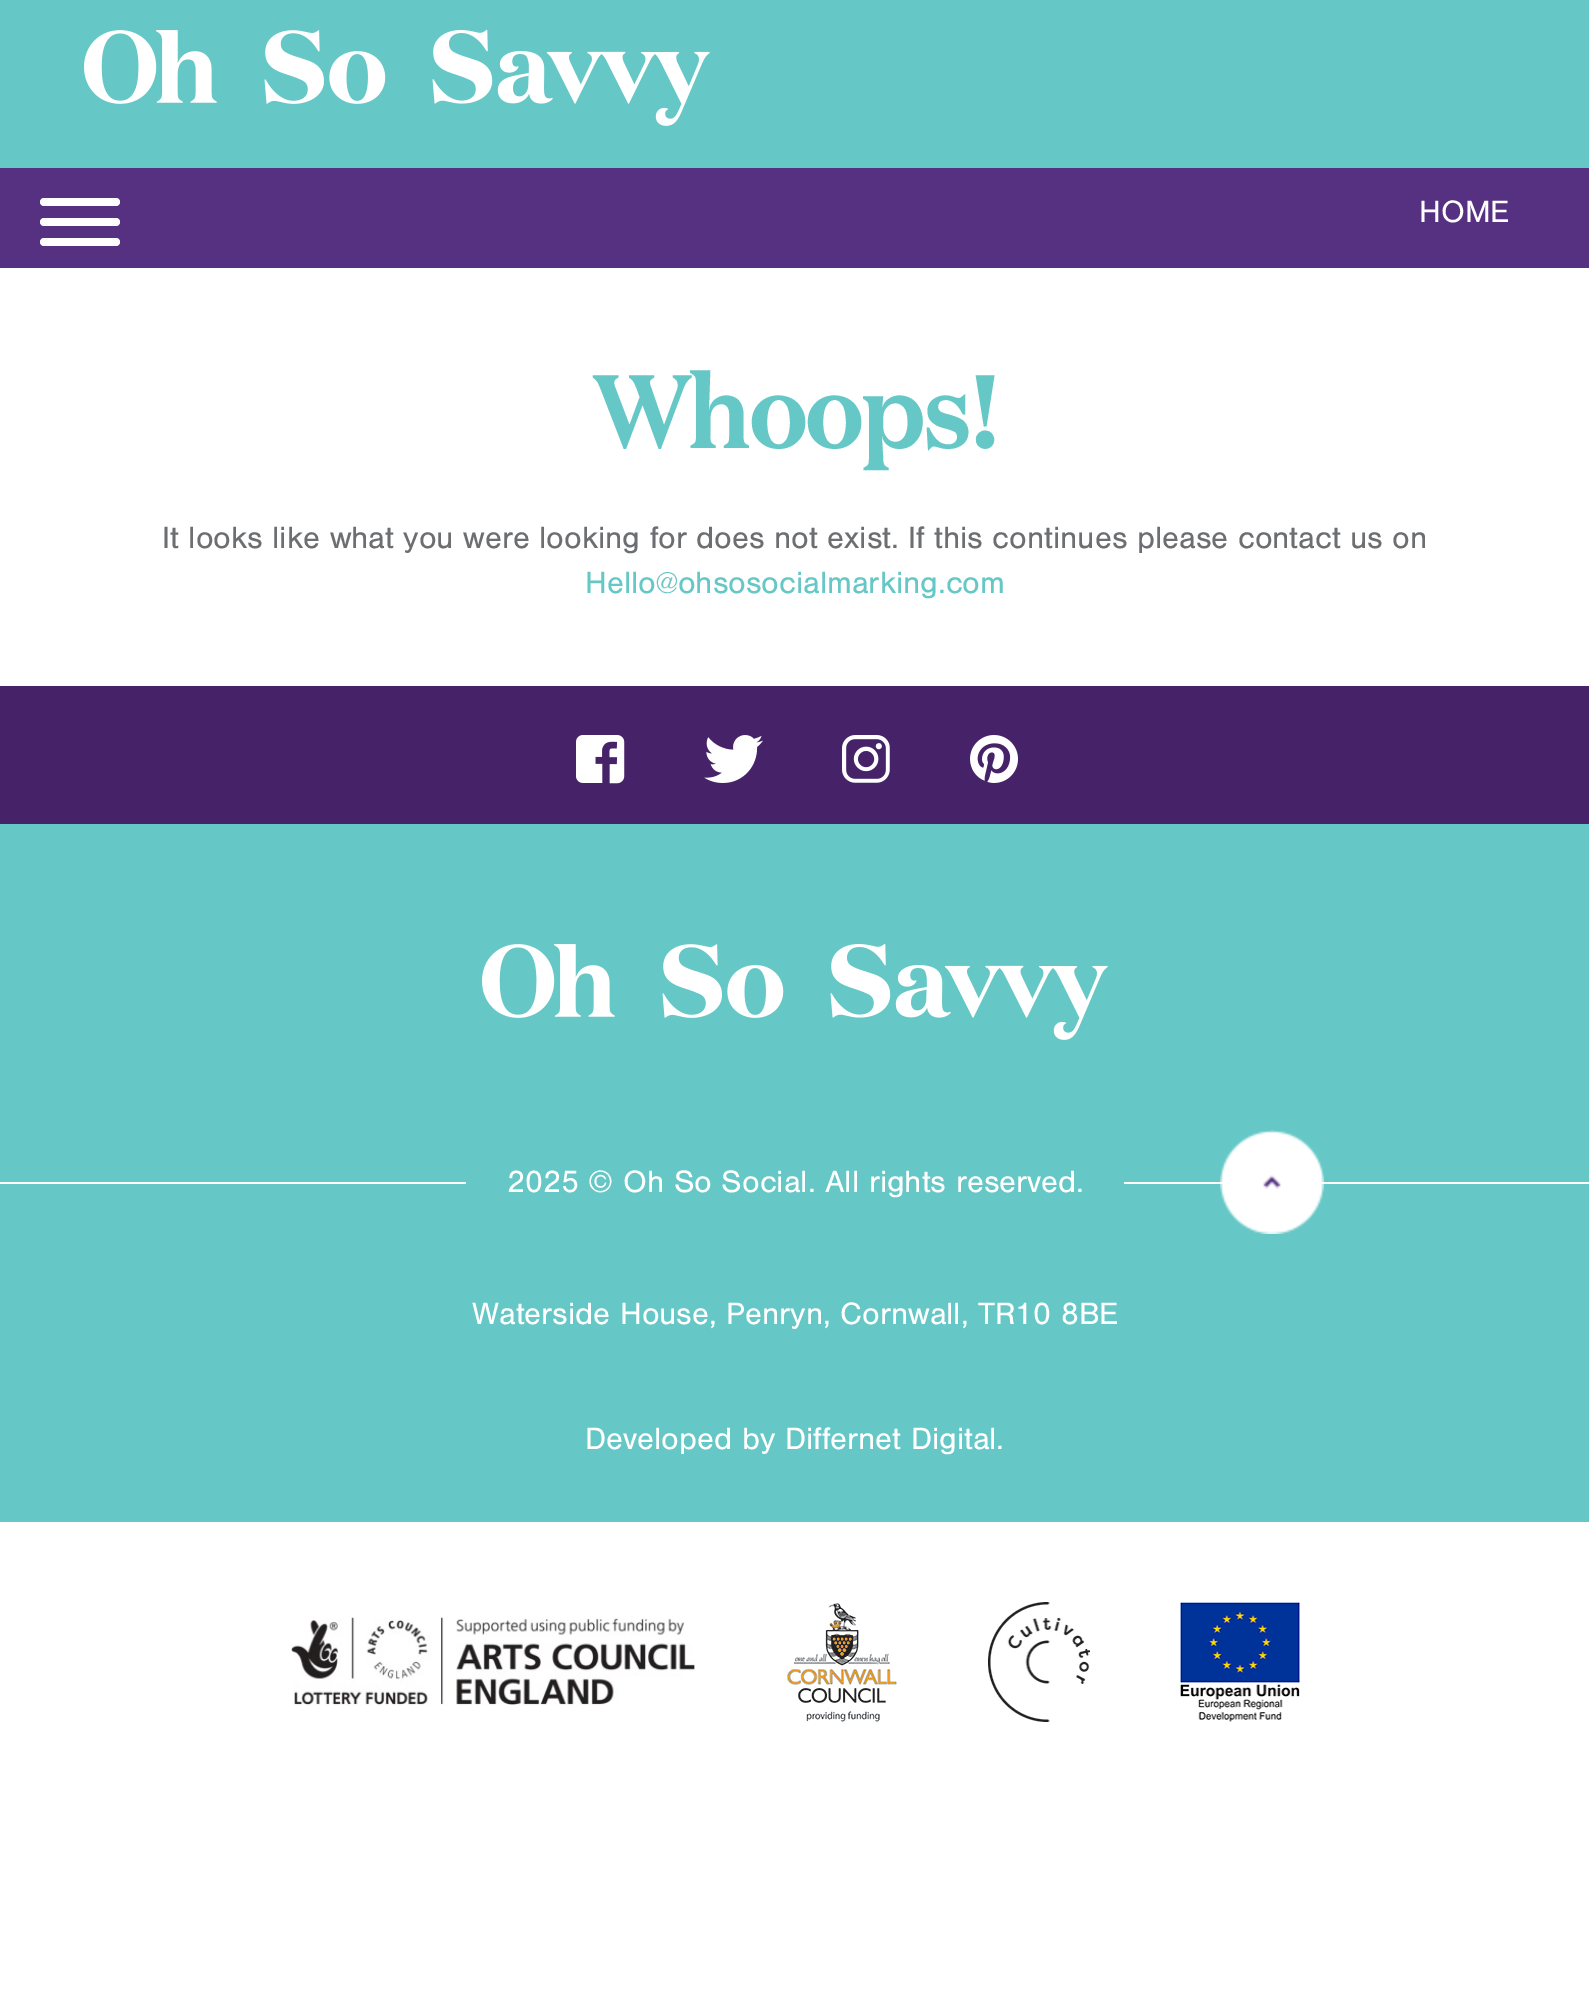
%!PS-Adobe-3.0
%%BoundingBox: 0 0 1589 2012
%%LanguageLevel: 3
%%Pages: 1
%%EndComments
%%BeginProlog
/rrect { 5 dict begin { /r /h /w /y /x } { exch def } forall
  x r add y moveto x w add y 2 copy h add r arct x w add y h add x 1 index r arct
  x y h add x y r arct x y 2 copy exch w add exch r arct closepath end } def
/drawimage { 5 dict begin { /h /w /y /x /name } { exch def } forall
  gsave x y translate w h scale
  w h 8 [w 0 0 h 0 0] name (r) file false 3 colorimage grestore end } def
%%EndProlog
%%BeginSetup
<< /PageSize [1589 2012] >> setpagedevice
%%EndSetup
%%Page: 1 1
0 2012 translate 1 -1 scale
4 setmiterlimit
1 setgray
0 0 1589 2012 rectfill
0.396 0.78 0.776 setrgbcolor
0 0 1589 168 rectfill
(images/1.raw) 84 29 626 97 drawimage
0.337 0.192 0.506 setrgbcolor
0 168 1589 100 rectfill
1 setgray
40 198 80 8 4 rrect fill
40 218 80 8 4 rrect fill
40 238 80 8 4 rrect fill
0.396 0.78 0.776 setrgbcolor
0 824 1589 698 rectfill
0.275 0.133 0.408 setrgbcolor
0 686 1589 138 rectfill
(images/2.raw) 576 735 49 49 drawimage
(images/3.raw) 704 735 59 48 drawimage
(images/4.raw) 842 735 48 48 drawimage
(images/5.raw) 970 735 48 48 drawimage
(images/1.raw) 482 943 626 97 drawimage
1 setgray
0 1182 1589 2 rectfill
0.396 0.78 0.776 setrgbcolor
466 1182 658 2 rectfill
(images/6.raw) 1220 1130 104 104 drawimage
(images/7.raw) 291 1617 404 89 drawimage
(images/8.raw) 787 1603 110 119 drawimage
(images/9.raw) 988 1602 102 120 drawimage
(images/10.raw) 1180 1602 120 120 drawimage
/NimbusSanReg-Regular [32 0 0 -32 0 0] selectfont
1 setgray
1419 222 moveto (HOME) show
/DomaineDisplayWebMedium-Bold [100 0 0 -100 0 0] selectfont
0.396 0.78 0.776 setrgbcolor
593 448 moveto (Whoops!) show
/NimbusSanReg-Regular [32 0 0 -32 0 0] selectfont
0.427 0.431 0.443 setrgbcolor
162 548 moveto (It looks like what you were looking for does not exist. If this continues please contact us on) show
0.396 0.78 0.776 setrgbcolor
585 593 moveto (Hello@ohsosocialmarking.com) show
1 setgray
507 1192 moveto (2025 © Oh So Social. All rights reserved.) show
472 1324 moveto (Waterside House, Penryn, Cornwall, TR10 8BE) show
585 1449 moveto (Developed by Differnet Digital.) show
showpage
%%EOF
